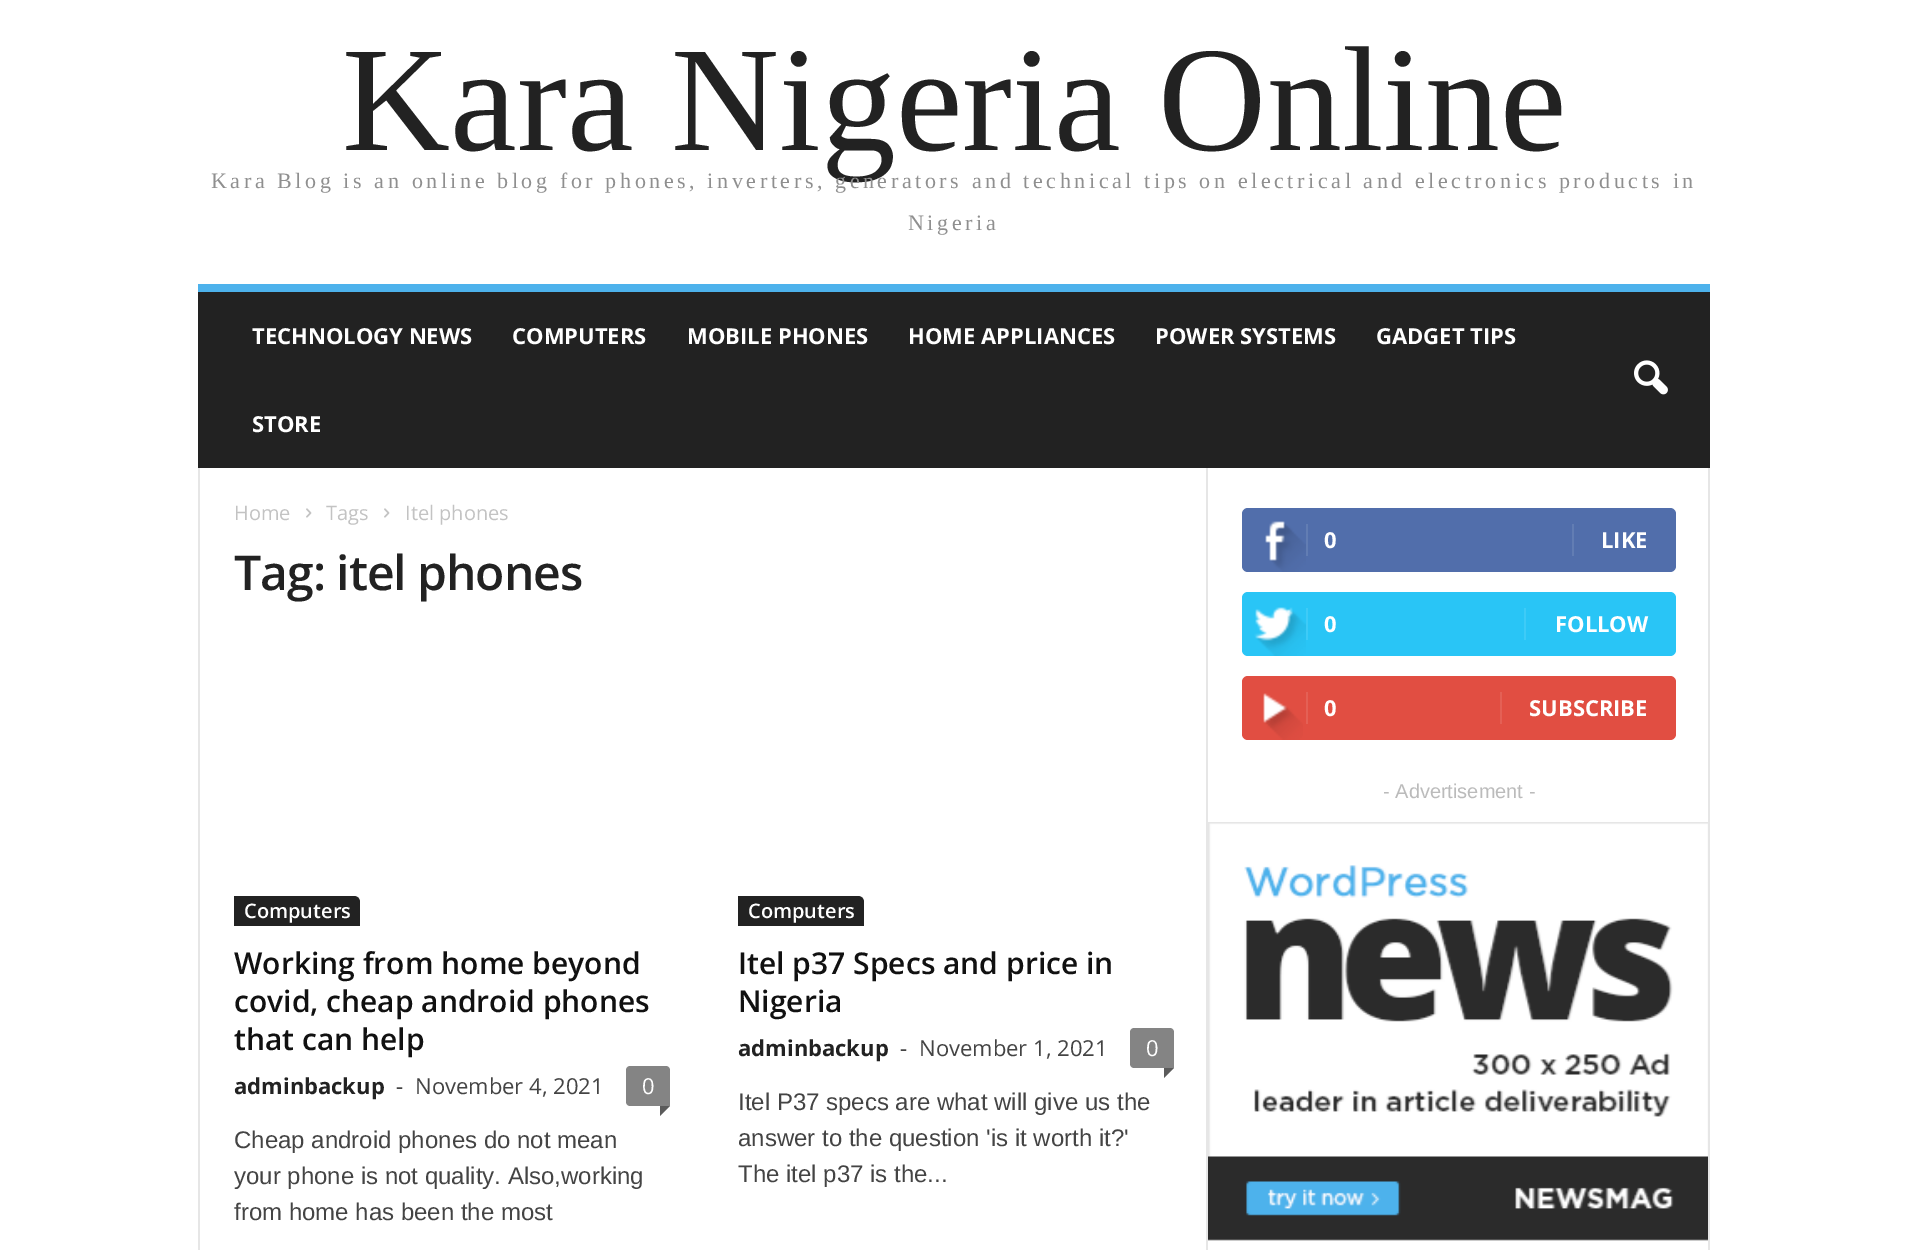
%!PS-Adobe-3.0
%%BoundingBox: 0 0 1907 1250
%%LanguageLevel: 3
%%Pages: 1
%%EndComments
%%BeginProlog
/rrect { 5 dict begin { /r /h /w /y /x } { exch def } forall
  x r add y moveto x w add y 2 copy h add r arct x w add y h add x 1 index r arct
  x y h add x y r arct x y 2 copy exch w add exch r arct closepath end } def
/drawimage { 5 dict begin { /h /w /y /x /name } { exch def } forall
  gsave x y translate w h scale
  w h 8 [w 0 0 h 0 0] name (r) file false 3 colorimage grestore end } def
%%EndProlog
%%BeginSetup
<< /PageSize [1907 1250] >> setpagedevice
%%EndSetup
%%Page: 1 1
0 1250 translate 1 -1 scale
4 setmiterlimit
1 setgray
0 0 1907 1250 rectfill
0.133 setgray
198 292 1512 176 rectfill
0.302 0.698 0.925 setrgbcolor
198 284 1512 8 rectfill
(images/1.raw) 1634 360 34 35 drawimage
0.902 setgray
198 468 2 782 rectfill
(images/2.raw) 306 508 6 10 drawimage
(images/2.raw) 384 508 6 10 drawimage
0.133 setgray
newpath 234 896 moveto 354 896 lineto 357.5 896 360 898.5 360 902 curveto 360 926 lineto 234 926 lineto closepath fill
0.518 setgray
newpath 630 1066 moveto 666 1066 lineto 668 1066 670 1068 670 1070 curveto 670 1106 lineto 630 1106 lineto 628 1106 626 1104 626 1102 curveto 626 1070 lineto 626 1068 628 1066 630 1066 curveto closepath fill
0.357 setgray
newpath 660 1106 moveto 670 1106 lineto 660 1116 lineto closepath fill
0.133 setgray
newpath 738 896 moveto 858 896 lineto 861.5 896 864 898.5 864 902 curveto 864 926 lineto 738 926 lineto closepath fill
0.518 setgray
newpath 1134 1028 moveto 1170 1028 lineto 1172 1028 1174 1030 1174 1032 curveto 1174 1068 lineto 1134 1068 lineto 1132 1068 1130 1066 1130 1064 curveto 1130 1032 lineto 1130 1030 1132 1028 1134 1028 curveto closepath fill
0.357 setgray
newpath 1164 1068 moveto 1174 1068 lineto 1164 1078 lineto closepath fill
0.902 setgray
1206 468 2 782 rectfill
0.318 0.431 0.671 setrgbcolor
1242 508 434 64 6 rrect fill
(images/3.raw) 1265 521 41 51 drawimage
0.384 0.49 0.702 setrgbcolor
1306 524 2 32 rectfill
1572 524 2 32 rectfill
0.161 0.773 0.965 setrgbcolor
1242 592 434 64 6 rrect fill
(images/4.raw) 1254 607 52 49 drawimage
0.243 0.796 0.969 setrgbcolor
1306 608 2 32 rectfill
1524 608 2 32 rectfill
0.882 0.306 0.259 setrgbcolor
1242 676 434 64 6 rrect fill
(images/5.raw) 1263 693 40 47 drawimage
0.894 0.376 0.333 setrgbcolor
1306 692 2 32 rectfill
1500 692 2 32 rectfill
(images/6.raw) 1208 822 500 419 drawimage
0.902 setgray
1708 468 2 782 rectfill
/LiberationSerif-Regular [150 0 0 -150 0 0] selectfont
0.133 setgray
342 150 moveto (Kara Nigeria Online) show
/LiberationSerif-Regular [22 0 0 -22 0 0] selectfont
0.561 setgray
211 188 moveto 3.6 0 (Kara Blog is an online blog for phones, inverters, generators and technical tips on electrical and electronics products in) ashow
908 230 moveto 3.6 0 (Nigeria) ashow
/OpenSans-Bold [22 0 0 -22 0 0] selectfont
1 setgray
252 344 moveto (TECHNOLOGY NEWS) show
512 344 moveto (COMPUTERS) show
687 344 moveto (MOBILE PHONES) show
908 344 moveto (HOME APPLIANCES) show
1155 344 moveto (POWER SYSTEMS) show
1376 344 moveto (GADGET TIPS) show
252 432 moveto (STORE) show
/OpenSans-Regular [20 0 0 -20 0 0] selectfont
0.765 setgray
234 520 moveto (Home) show
326 520 moveto (Tags) show
405 520 moveto (Itel phones) show
/OpenSans-SemiBold [48 0 0 -48 0 0] selectfont
0.133 setgray
234 590 moveto -1 0 (Tag: itel phones) ashow
/OpenSans-SemiBold [20 0 0 -20 0 0] selectfont
1 setgray
244 918 moveto (Computers) show
/OpenSans-SemiBold [30 0 0 -30 0 0] selectfont
0.067 setgray
234 974 moveto (Working from home beyond) show
234 1012 moveto (covid, cheap android phones) show
234 1050 moveto (that can help) show
/OpenSans-Bold [22 0 0 -22 0 0] selectfont
0.133 setgray
234 1094 moveto (adminbackup) show
/OpenSans-Regular [22 0 0 -22 0 0] selectfont
0.267 setgray
396 1094 moveto (-) show
415 1094 moveto (November 4, 2021) show
1 setgray
642 1094 moveto (0) show
/LiberationSans-Regular [24 0 0 -24 0 0] selectfont
0.267 setgray
234 1148 moveto (Cheap android phones do not mean) show
234 1184 moveto (your phone is not quality. Also,working) show
234 1220 moveto (from home has been the most) show
/OpenSans-SemiBold [20 0 0 -20 0 0] selectfont
1 setgray
748 918 moveto (Computers) show
/OpenSans-SemiBold [30 0 0 -30 0 0] selectfont
0.067 setgray
738 974 moveto (Itel p37 Specs and price in) show
738 1012 moveto (Nigeria) show
/OpenSans-Bold [22 0 0 -22 0 0] selectfont
0.133 setgray
738 1056 moveto (adminbackup) show
/OpenSans-Regular [22 0 0 -22 0 0] selectfont
0.267 setgray
900 1056 moveto (-) show
919 1056 moveto (November 1, 2021) show
1 setgray
1146 1056 moveto (0) show
/LiberationSans-Regular [24 0 0 -24 0 0] selectfont
0.267 setgray
738 1110 moveto (Itel P37 specs are what will give us the) show
738 1146 moveto (answer to the question 'is it worth it?') show
738 1182 moveto (The itel p37 is the...) show
/OpenSans-Bold [22 0 0 -22 0 0] selectfont
1 setgray
1324 548 moveto (0) show
1601 548 moveto (LIKE) show
1324 632 moveto (0) show
1555 632 moveto (FOLLOW) show
1324 716 moveto (0) show
1529 716 moveto (SUBSCRIBE) show
/LiberationSans-Regular [20 0 0 -20 0 0] selectfont
0.733 setgray
1383 798 moveto (- Advertisement -) show
showpage
%%EOF
